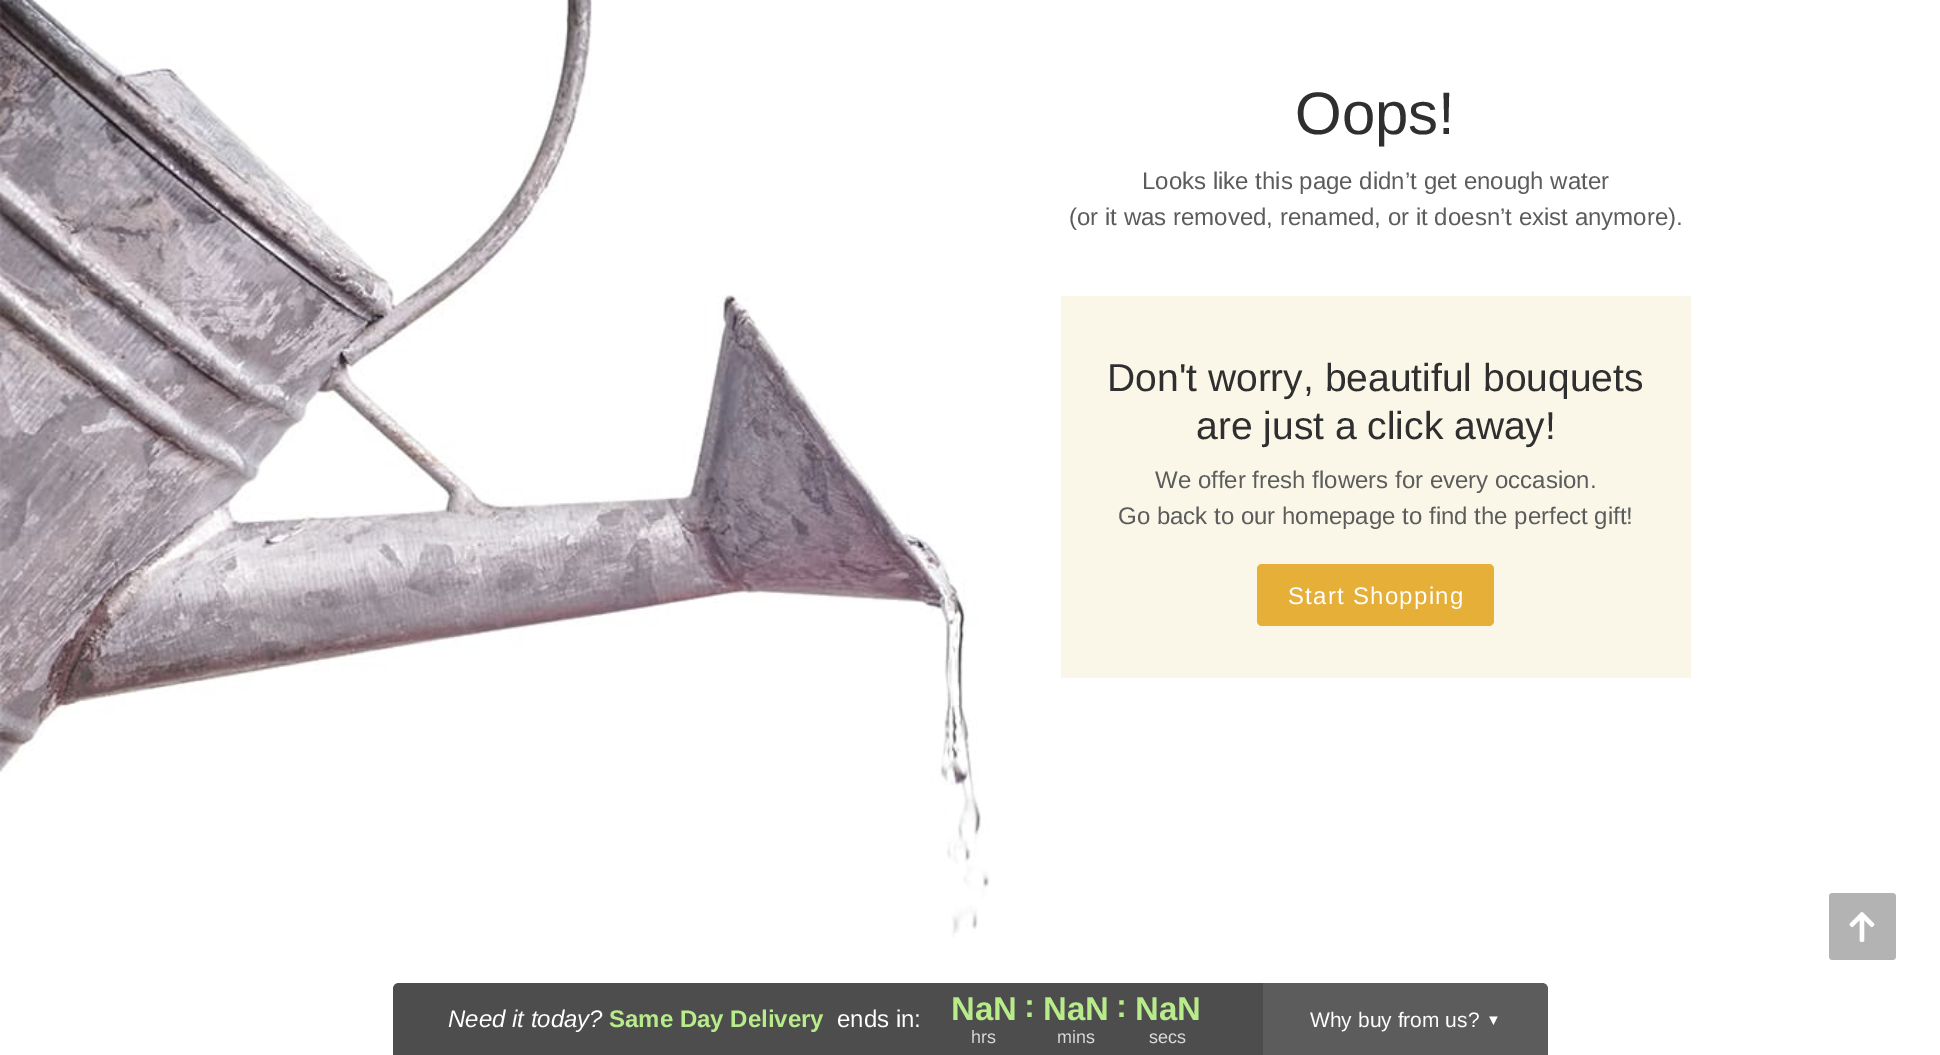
%!PS-Adobe-3.0
%%BoundingBox: 0 0 1940 1055
%%LanguageLevel: 3
%%Pages: 1
%%EndComments
%%BeginProlog
/rrect { 5 dict begin { /r /h /w /y /x } { exch def } forall
  x r add y moveto x w add y 2 copy h add r arct x w add y h add x 1 index r arct
  x y h add x y r arct x y 2 copy exch w add exch r arct closepath end } def
/drawimage { 5 dict begin { /h /w /y /x /name } { exch def } forall
  gsave x y translate w h scale
  w h 8 [w 0 0 h 0 0] name (r) file false 3 colorimage grestore end } def
%%EndProlog
%%BeginSetup
<< /PageSize [1940 1055] >> setpagedevice
%%EndSetup
%%Page: 1 1
0 1055 translate 1 -1 scale
4 setmiterlimit
1 setgray
0 0 1940 1055 rectfill
(images/1.raw) 0 0 990 938 drawimage
0.98 0.969 0.914 setrgbcolor
1061 296 630 382 rectfill
0.902 0.686 0.22 setrgbcolor
1257 564 237 62 5 rrect fill
(images/2.raw) 1829 893 67 67 drawimage
0.302 setgray
newpath 399 983 moveto 1263 983 lineto 1263 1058 lineto 393 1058 lineto 393 989 lineto 393 985.5 395.5 983 399 983 curveto closepath fill
0.361 setgray
newpath 1263 983 moveto 1542 983 lineto 1545.5 983 1548 985.5 1548 989 curveto 1548 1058 lineto 1263 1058 lineto closepath fill
/LiberationSans-Regular [60 0 0 -60 0 0] selectfont
0.184 setgray
1295 134 moveto (Oops!) show
/LiberationSans-Regular [24 0 0 -24 0 0] selectfont
0.361 setgray
1142 189 moveto (Looks like this page didn’t get enough water) show
1069 225 moveto (\(or it was removed, renamed, or it doesn’t exist anymore\).) show
/LiberationSans-Regular [39 0 0 -39 0 0] selectfont
0.184 setgray
1107 391 moveto (Don't worry, beautiful bouquets) show
1196 439 moveto (are just a click away!) show
/LiberationSans-Regular [24 0 0 -24 0 0] selectfont
0.361 setgray
1155 488 moveto (We offer fresh flowers for every occasion.) show
1118 524 moveto (Go back to our homepage to find the perfect gift!) show
1 setgray
1288 604 moveto 1.25 0 (Start Shopping) ashow
/LiberationSans-Italic [24 0 0 -24 0 0] selectfont
448 1027 moveto (Need it today?) show
/LiberationSans-Bold [24 0 0 -24 0 0] selectfont
0.722 0.922 0.537 setrgbcolor
609 1027 moveto (Same Day Delivery) show
/LiberationSans-Regular [24 0 0 -24 0 0] selectfont
1 setgray
837 1027 moveto (ends in:) show
/LiberationSans-Bold [33 0 0 -33 0 0] selectfont
0.722 0.922 0.537 setrgbcolor
951 1020 moveto (NaN) show
/LiberationSans-Regular [18 0 0 -18 0 0] selectfont
0.859 setgray
971 1043 moveto (hrs) show
/LiberationSans-Bold [33 0 0 -33 0 0] selectfont
0.722 0.922 0.537 setrgbcolor
1024 1017 moveto (:) show
1043 1020 moveto (NaN) show
/LiberationSans-Regular [18 0 0 -18 0 0] selectfont
0.859 setgray
1057 1043 moveto (mins) show
/LiberationSans-Bold [33 0 0 -33 0 0] selectfont
0.722 0.922 0.537 setrgbcolor
1116 1017 moveto (:) show
1135 1020 moveto (NaN) show
/LiberationSans-Regular [18 0 0 -18 0 0] selectfont
0.859 setgray
1149 1043 moveto (secs) show
/LiberationSans-Regular [21 0 0 -21 0 0] selectfont
1 setgray
1310 1027 moveto (Why buy from us?) show
/LiberationSans-Regular [15 0 0 -15 0 0] selectfont
1486 1025 moveto (▼) show
showpage
%%EOF
